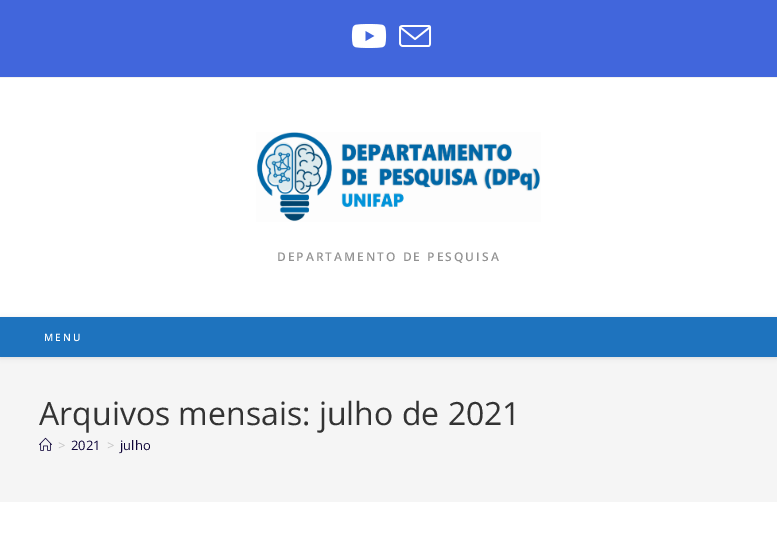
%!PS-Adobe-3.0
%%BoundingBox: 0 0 777 550
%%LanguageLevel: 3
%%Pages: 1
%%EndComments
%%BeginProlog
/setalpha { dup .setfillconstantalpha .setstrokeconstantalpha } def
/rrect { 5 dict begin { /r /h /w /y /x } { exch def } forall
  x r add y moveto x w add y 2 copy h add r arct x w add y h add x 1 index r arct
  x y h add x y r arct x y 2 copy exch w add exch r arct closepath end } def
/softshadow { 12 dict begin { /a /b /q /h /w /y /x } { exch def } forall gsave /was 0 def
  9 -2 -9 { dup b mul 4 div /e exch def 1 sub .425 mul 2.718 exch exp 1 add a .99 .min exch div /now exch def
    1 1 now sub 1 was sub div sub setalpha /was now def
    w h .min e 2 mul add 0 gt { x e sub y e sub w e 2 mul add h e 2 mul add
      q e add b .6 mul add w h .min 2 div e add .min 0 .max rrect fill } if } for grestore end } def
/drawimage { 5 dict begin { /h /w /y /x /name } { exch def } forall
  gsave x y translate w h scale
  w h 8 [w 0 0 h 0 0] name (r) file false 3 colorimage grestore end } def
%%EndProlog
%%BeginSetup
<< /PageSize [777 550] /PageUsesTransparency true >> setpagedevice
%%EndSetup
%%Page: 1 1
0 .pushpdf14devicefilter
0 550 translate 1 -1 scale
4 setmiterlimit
1 setgray
0 0 777 550 rectfill
0.255 0.4 0.863 setrgbcolor
0 0 777 77 rectfill
0.945 setgray
0 77 777 1 rectfill
(images/1.raw) 351 24 36 24 drawimage
(images/2.raw) 399 25 33 22 drawimage
(images/3.raw) 256 132 285 90 drawimage
0.961 setgray
0 357 777 145 rectfill
0 setgray
0 318 777 40 0 2.5 0.1 softshadow
0.118 0.451 0.745 setrgbcolor
0 317 777 40 rectfill
(images/4.raw) 39 437 13 14 drawimage
/OpenSans-SemiBold [12 0 0 -12 0 0] selectfont
0.573 setgray
277 261 moveto 2 0 (DEPARTAMENTO DE PESQUISA) ashow
/OpenSans-SemiBold [10 0 0 -10 0 0] selectfont
1 setgray
44 341 moveto 2 0 (MENU) ashow
/OpenSans-Regular [32 0 0 -32 0 0] selectfont
0.2 setgray
39 425 moveto (Arquivos mensais: julho de 2021) show
/OpenSans-Regular [13 0 0 -13 0 0] selectfont
0.776 setgray
58 450 moveto (>) show
0.059 0.02 0.22 setrgbcolor
71 450 moveto (2021) show
0.776 setgray
107 450 moveto (>) show
0.059 0.02 0.22 setrgbcolor
120 450 moveto (julho) show
.poppdf14devicefilter showpage
%%EOF
